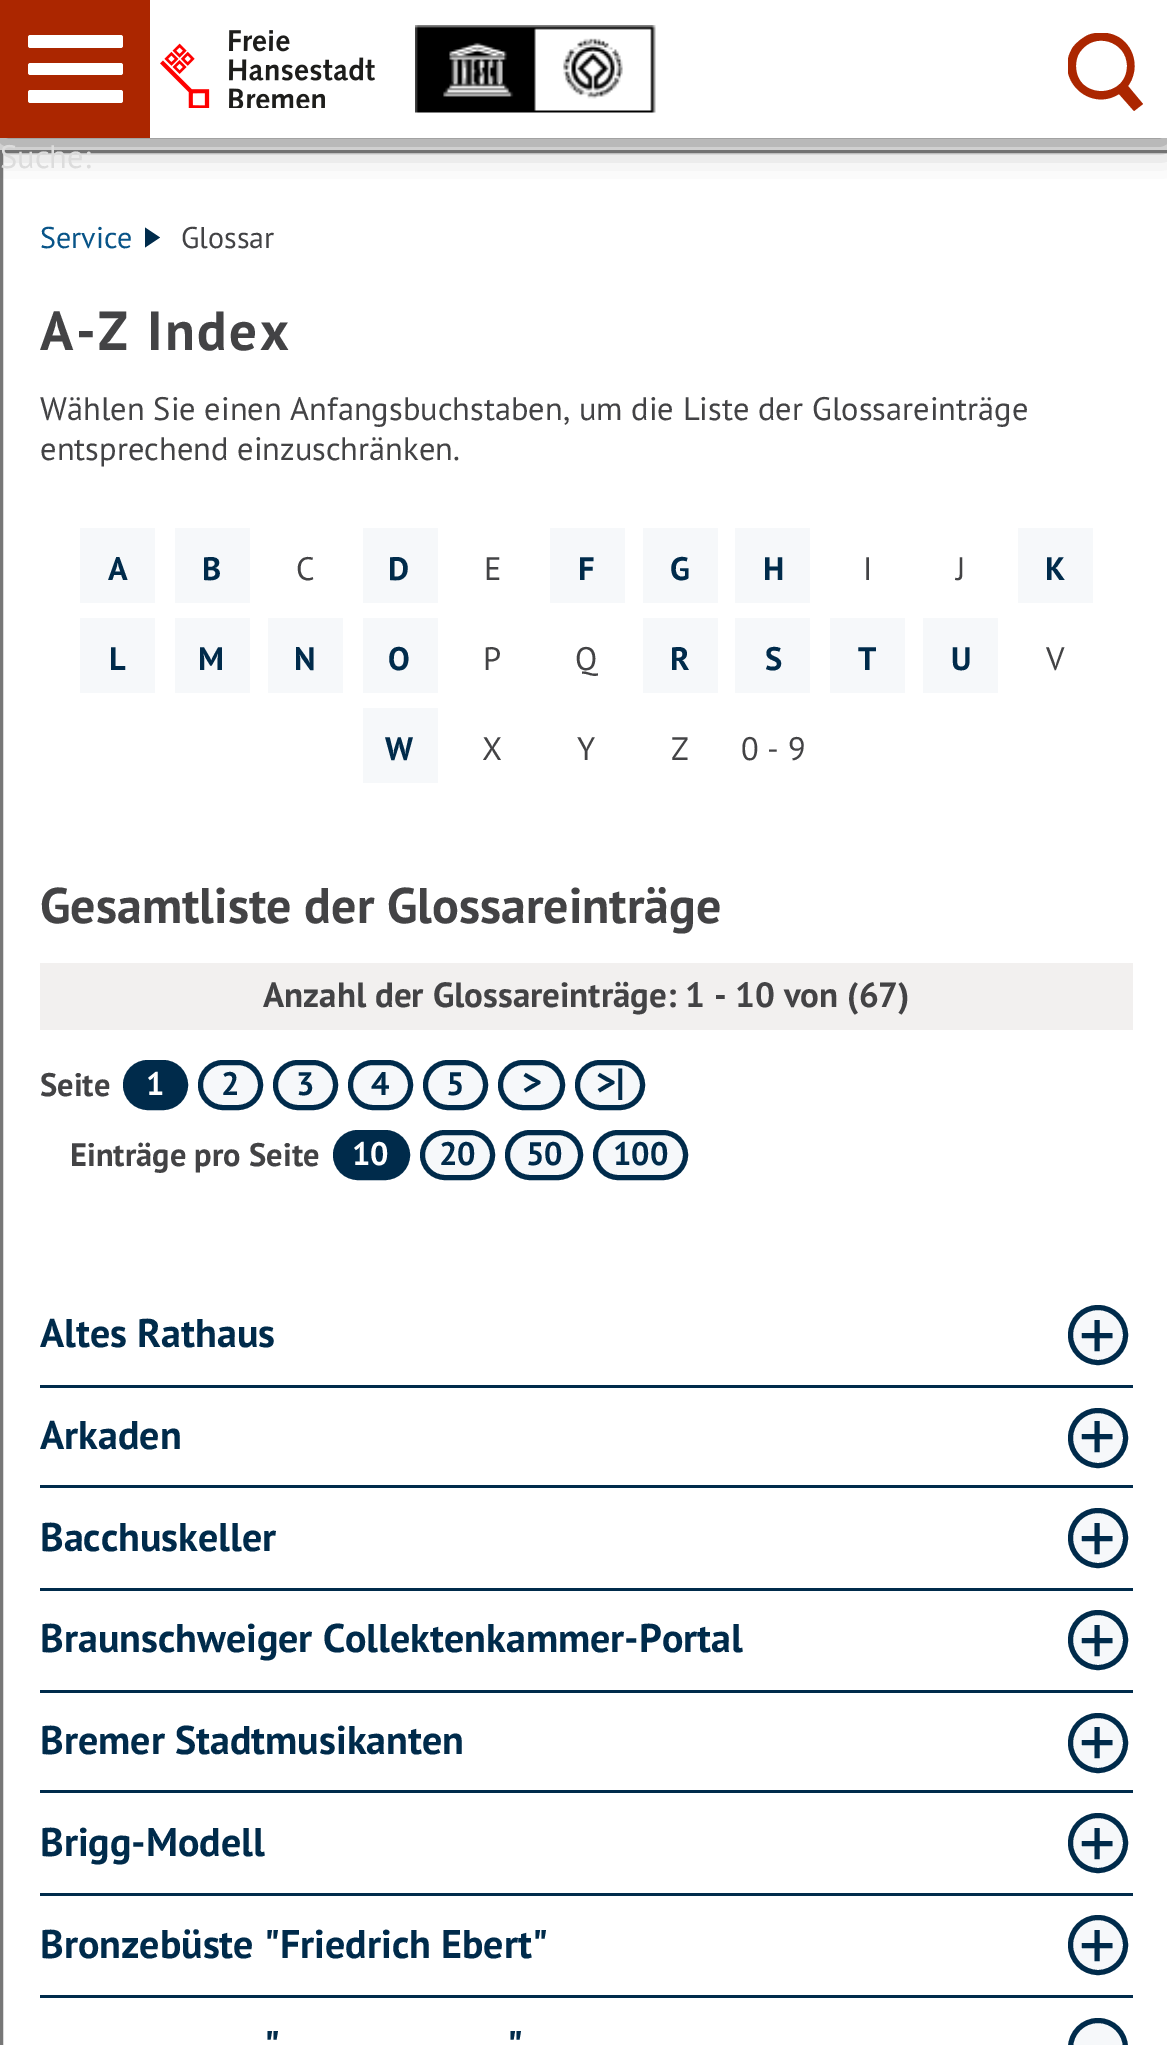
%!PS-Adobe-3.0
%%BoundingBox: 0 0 1167 2045
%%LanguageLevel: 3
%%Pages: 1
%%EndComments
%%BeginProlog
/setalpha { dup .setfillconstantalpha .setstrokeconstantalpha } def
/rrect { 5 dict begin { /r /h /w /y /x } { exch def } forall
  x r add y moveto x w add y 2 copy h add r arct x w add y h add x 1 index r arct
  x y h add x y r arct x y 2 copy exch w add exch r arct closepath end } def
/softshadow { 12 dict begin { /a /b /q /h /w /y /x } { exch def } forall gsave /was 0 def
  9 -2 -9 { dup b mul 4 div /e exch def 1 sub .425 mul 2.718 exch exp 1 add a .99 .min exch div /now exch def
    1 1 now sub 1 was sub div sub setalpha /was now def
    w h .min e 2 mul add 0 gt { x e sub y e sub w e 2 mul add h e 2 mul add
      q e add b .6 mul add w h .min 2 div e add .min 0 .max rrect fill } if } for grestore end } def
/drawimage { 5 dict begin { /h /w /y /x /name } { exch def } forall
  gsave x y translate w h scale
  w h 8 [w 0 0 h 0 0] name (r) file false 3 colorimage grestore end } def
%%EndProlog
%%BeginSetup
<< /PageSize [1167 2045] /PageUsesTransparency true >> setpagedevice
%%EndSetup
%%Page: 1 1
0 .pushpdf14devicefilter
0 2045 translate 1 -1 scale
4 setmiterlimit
0.953 setgray
0 0 1167 2045 rectfill
1 setgray
newpath 1.5 151.5 moveto 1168.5 151.5 lineto 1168.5 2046.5 lineto 1.5 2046.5 lineto closepath gsave fill grestore
0.467 setgray
3 setlinewidth
stroke
0.392 setgray
0 5 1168 138 0 16 0.8 softshadow
0.671 0.149 0 setrgbcolor
0 0 150 138 rectfill
1 setgray
28 35 95 13 2.5 rrect fill
28 63 95 12 2.5 rrect fill
28 90 95 13 2.5 rrect fill
150 0 1017 138 rectfill
(images/1.raw) 160 30 215 78 drawimage
(images/2.raw) 415 25 241 88 drawimage
gsave
1068 33 75 80 rectclip
0.671 0.149 0 setrgbcolor
newpath 1143 104 moveto 1128 86 lineto 1139 71 1136 49 1120 38 curveto 1111 32 1098 31 1088 35 curveto 1082 38 1077 42 1073 47 curveto 1053 78 1089 113 1119 94 curveto 1134 111 lineto closepath 1076 66 moveto 1076 61 1077 56 1080 52 curveto 1094 31 1127 41 1127 66 curveto 1127 99 1076 100 1076 66 curveto closepath fill
grestore
0 0.169 0.294 setrgbcolor
newpath 145 247.5 moveto 145 227.5 lineto 160 237.5 lineto closepath fill
0.965 0.973 0.98 setrgbcolor
80 528 75 75 rectfill
175 528 75 75 rectfill
363 528 75 75 rectfill
550 528 75 75 rectfill
643 528 75 75 rectfill
735 528 75 75 rectfill
1018 528 75 75 rectfill
80 618 75 75 rectfill
175 618 75 75 rectfill
268 618 75 75 rectfill
363 618 75 75 rectfill
643 618 75 75 rectfill
735 618 75 75 rectfill
830 618 75 75 rectfill
923 618 75 75 rectfill
363 708 75 75 rectfill
0.949 0.941 0.937 setrgbcolor
40 963 1093 67 rectfill
0 0.169 0.294 setrgbcolor
125.5 1062.5 60 45 22.5 rrect gsave fill grestore
5 setlinewidth
stroke
0.965 0.973 0.98 setrgbcolor
200.5 1062.5 60 45 22.5 rrect gsave fill grestore
0 0.169 0.294 setrgbcolor
stroke
0.965 0.973 0.98 setrgbcolor
275.5 1062.5 60 45 22.5 rrect gsave fill grestore
0 0.169 0.294 setrgbcolor
stroke
0.965 0.973 0.98 setrgbcolor
350.5 1062.5 60 45 22.5 rrect gsave fill grestore
0 0.169 0.294 setrgbcolor
stroke
0.965 0.973 0.98 setrgbcolor
425.5 1062.5 60 45 22.5 rrect gsave fill grestore
0 0.169 0.294 setrgbcolor
stroke
0.965 0.973 0.98 setrgbcolor
500.5 1062.5 62 45 22.5 rrect gsave fill grestore
0 0.169 0.294 setrgbcolor
stroke
0.965 0.973 0.98 setrgbcolor
577.5 1062.5 65 45 22.5 rrect gsave fill grestore
0 0.169 0.294 setrgbcolor
stroke
335.5 1132.5 72 45 22.5 rrect gsave fill grestore
stroke
0.965 0.973 0.98 setrgbcolor
422.5 1132.5 70 45 22.5 rrect gsave fill grestore
0 0.169 0.294 setrgbcolor
stroke
0.965 0.973 0.98 setrgbcolor
507.5 1132.5 73 45 22.5 rrect gsave fill grestore
0 0.169 0.294 setrgbcolor
stroke
0.965 0.973 0.98 setrgbcolor
595.5 1132.5 90 45 22.5 rrect gsave fill grestore
0 0.169 0.294 setrgbcolor
stroke
40 1385 1093 3 rectfill
0.965 0.973 0.98 setrgbcolor
newpath 1098 1335 27.5 0 360 arc closepath gsave fill grestore
0 0.169 0.294 setrgbcolor
stroke
40 1485 1093 3 rectfill
0.965 0.973 0.98 setrgbcolor
newpath 1098 1438 27.5 0 360 arc closepath gsave fill grestore
0 0.169 0.294 setrgbcolor
stroke
40 1588 1093 3 rectfill
0.965 0.973 0.98 setrgbcolor
newpath 1098 1538 27.5 0 360 arc closepath gsave fill grestore
0 0.169 0.294 setrgbcolor
stroke
40 1690 1093 3 rectfill
0.965 0.973 0.98 setrgbcolor
newpath 1098 1640 27.5 0 360 arc closepath gsave fill grestore
0 0.169 0.294 setrgbcolor
stroke
40 1790 1093 3 rectfill
0.965 0.973 0.98 setrgbcolor
newpath 1098 1743 27.5 0 360 arc closepath gsave fill grestore
0 0.169 0.294 setrgbcolor
stroke
40 1893 1093 3 rectfill
0.965 0.973 0.98 setrgbcolor
newpath 1098 1843 27.5 0 360 arc closepath gsave fill grestore
0 0.169 0.294 setrgbcolor
stroke
40 1995 1093 3 rectfill
0.965 0.973 0.98 setrgbcolor
newpath 1098 1945 27.5 0 360 arc closepath gsave fill grestore
0 0.169 0.294 setrgbcolor
stroke
0.965 0.973 0.98 setrgbcolor
newpath 1098 2048 27.5 0 360 arc closepath gsave fill grestore
0 0.169 0.294 setrgbcolor
stroke
/PTSans-Regular [32.5 0 0 -32.5 0 0] selectfont
0.863 setgray
0 168 moveto (Suche:) show
/PTSans-Regular [30 0 0 -30 0 0] selectfont
0.031 0.329 0.533 setrgbcolor
40 248 moveto (Service) show
0.263 0.263 0.271 setrgbcolor
181 248 moveto (Glossar) show
/PTSans-Bold [55 0 0 -55 0 0] selectfont
40 350 moveto 2.5 0 (A-Z Index) ashow
/PTSans-Regular [32.5 0 0 -32.5 0 0] selectfont
40 420 moveto (Wählen Sie einen Anfangsbuchstaben, um die Liste der Glossareinträge) show
40 460 moveto (entsprechend einzuschränken.) show
/PTSans-Bold [32.5 0 0 -32.5 0 0] selectfont
0 0.169 0.294 setrgbcolor
108 580 moveto (A) show
202 580 moveto (B) show
/PTSans-Regular [32.5 0 0 -32.5 0 0] selectfont
0.263 0.263 0.271 setrgbcolor
296 580 moveto (C) show
/PTSans-Bold [32.5 0 0 -32.5 0 0] selectfont
0 0.169 0.294 setrgbcolor
388 580 moveto (D) show
/PTSans-Regular [32.5 0 0 -32.5 0 0] selectfont
0.263 0.263 0.271 setrgbcolor
484 580 moveto (E) show
/PTSans-Bold [32.5 0 0 -32.5 0 0] selectfont
0 0.169 0.294 setrgbcolor
578 580 moveto (F) show
670 580 moveto (G) show
763 580 moveto (H) show
/PTSans-Regular [32.5 0 0 -32.5 0 0] selectfont
0.263 0.263 0.271 setrgbcolor
863 580 moveto (I) show
956 580 moveto (J) show
/PTSans-Bold [32.5 0 0 -32.5 0 0] selectfont
0 0.169 0.294 setrgbcolor
1045 580 moveto (K) show
109 670 moveto (L) show
198 670 moveto (M) show
294 670 moveto (N) show
388 670 moveto (O) show
/PTSans-Regular [32.5 0 0 -32.5 0 0] selectfont
0.263 0.263 0.271 setrgbcolor
483 670 moveto (P) show
575 670 moveto (Q) show
/PTSans-Bold [32.5 0 0 -32.5 0 0] selectfont
0 0.169 0.294 setrgbcolor
670 670 moveto (R) show
765 670 moveto (S) show
858 670 moveto (T) show
951 670 moveto (U) show
/PTSans-Regular [32.5 0 0 -32.5 0 0] selectfont
0.263 0.263 0.271 setrgbcolor
1046 670 moveto (V) show
/PTSans-Bold [32.5 0 0 -32.5 0 0] selectfont
0 0.169 0.294 setrgbcolor
385 760 moveto (W) show
/PTSans-Regular [32.5 0 0 -32.5 0 0] selectfont
0.263 0.263 0.271 setrgbcolor
482 760 moveto (X) show
577 760 moveto (Y) show
671 760 moveto (Z) show
741 760 moveto (0 - 9) show
/PTSans-Bold [50 0 0 -50 0 0] selectfont
40 923 moveto (Gesamtliste der Glossareinträge) show
/PTSans-Bold [35 0 0 -35 0 0] selectfont
263 1007 moveto (Anzahl der Glossareinträge: 1 - 10 von \(67\)) show
/PTSans-Bold [32.5 0 0 -32.5 0 0] selectfont
40 1096 moveto (Seite) show
1 setgray
146 1095 moveto (1) show
0 0.169 0.294 setrgbcolor
221 1095 moveto (2) show
296 1095 moveto (3) show
371 1095 moveto (4) show
446 1095 moveto (5) show
/PTSans-Bold [38 0 0 -38 0 0] selectfont
522 1095 moveto (>) show
596 1095 moveto (>|) show
/PTSans-Bold [32.5 0 0 -32.5 0 0] selectfont
0.263 0.263 0.271 setrgbcolor
70 1166 moveto (Einträge pro Seite) show
1 setgray
352 1165 moveto (10) show
0 0.169 0.294 setrgbcolor
439 1165 moveto (20) show
526 1165 moveto (50) show
613 1165 moveto (100) show
/PTSans-Bold [40 0 0 -40 0 0] selectfont
40 1347 moveto (Altes Rathaus) show
/PTSans-Regular [72 0 0 -72 0 0] selectfont
1079 1360 moveto (+) show
/PTSans-Bold [40 0 0 -40 0 0] selectfont
40 1449 moveto (Arkaden) show
/PTSans-Regular [72 0 0 -72 0 0] selectfont
1079 1461 moveto (+) show
/PTSans-Bold [40 0 0 -40 0 0] selectfont
40 1551 moveto (Bacchuskeller) show
/PTSans-Regular [72 0 0 -72 0 0] selectfont
1079 1563 moveto (+) show
/PTSans-Bold [40 0 0 -40 0 0] selectfont
40 1652 moveto (Braunschweiger Collektenkammer-Portal) show
/PTSans-Regular [72 0 0 -72 0 0] selectfont
1079 1665 moveto (+) show
/PTSans-Bold [40 0 0 -40 0 0] selectfont
40 1754 moveto (Bremer Stadtmusikanten) show
/PTSans-Regular [72 0 0 -72 0 0] selectfont
1079 1767 moveto (+) show
/PTSans-Bold [40 0 0 -40 0 0] selectfont
40 1856 moveto (Brigg-Modell) show
/PTSans-Regular [72 0 0 -72 0 0] selectfont
1079 1868 moveto (+) show
/PTSans-Bold [40 0 0 -40 0 0] selectfont
40 1958 moveto (Bronzebüste "Friedrich Ebert") show
/PTSans-Regular [72 0 0 -72 0 0] selectfont
1079 1970 moveto (+) show
/PTSans-Bold [40 0 0 -40 0 0] selectfont
264 2059 moveto (") show
507 2059 moveto (") show
.poppdf14devicefilter showpage
%%EOF
